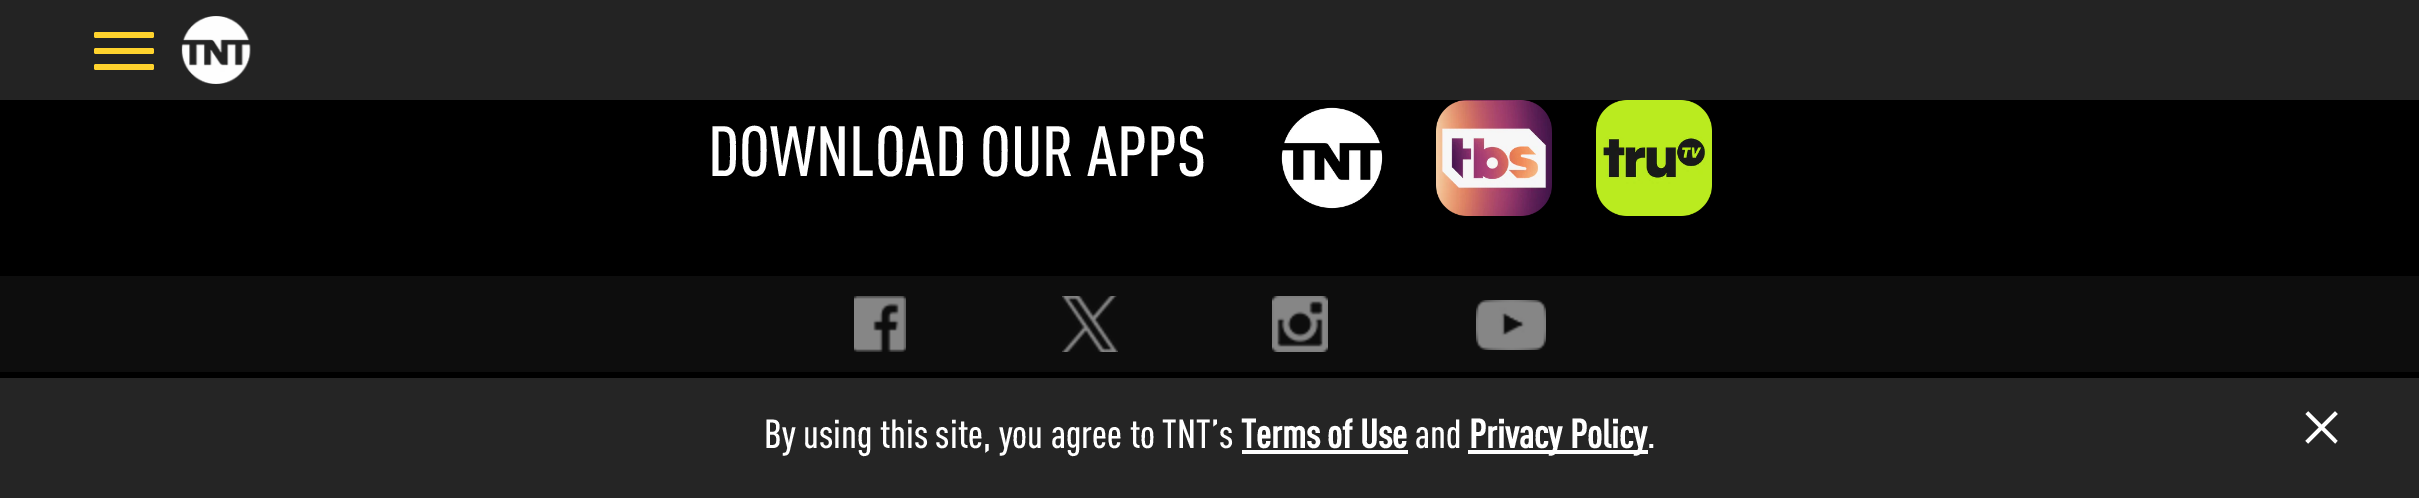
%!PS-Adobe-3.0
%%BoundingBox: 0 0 2419 498
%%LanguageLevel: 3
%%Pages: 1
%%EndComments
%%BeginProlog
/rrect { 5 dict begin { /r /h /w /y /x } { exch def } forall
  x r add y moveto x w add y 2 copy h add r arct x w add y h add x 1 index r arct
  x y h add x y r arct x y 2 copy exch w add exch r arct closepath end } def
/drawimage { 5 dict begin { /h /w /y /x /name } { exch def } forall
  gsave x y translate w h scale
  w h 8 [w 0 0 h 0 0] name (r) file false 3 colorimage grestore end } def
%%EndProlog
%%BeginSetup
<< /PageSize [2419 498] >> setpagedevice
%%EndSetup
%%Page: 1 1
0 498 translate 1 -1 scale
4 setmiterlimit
0 setgray
0 0 2419 498 rectfill
0.137 setgray
0 0 2419 100 rectfill
(images/1.raw) 181 16 70 68 drawimage
1 0.827 0.176 setrgbcolor
94 32 60 6 2 rrect fill
94 48 60 6 2 rrect fill
94 64 60 6 2 rrect fill
(images/2.raw) 1281 107 102 102 drawimage
(images/3.raw) 1436 100 116 116 drawimage
(images/4.raw) 1596 100 116 116 drawimage
0.051 setgray
0 276 2419 96 rectfill
(images/5.raw) 854 296 52 56 drawimage
(images/6.raw) 1062 296 56 56 drawimage
(images/7.raw) 1272 296 56 56 drawimage
(images/8.raw) 1476 300 70 50 drawimage
0.145 setgray
0 378 2419 120 rectfill
1 setgray
1242 450 166 4 rectfill
1468 450 180 4 rectfill
/DIN-Medium [70 0 0 -70 0 0] selectfont
708 176 moveto (DOWNLOAD OUR APPS) show
/DIN-Medium [40 0 0 -40 0 0] selectfont
764 448 moveto (By using this site, you agree to TNT’s) show
/DIN-Bold [40 0 0 -40 0 0] selectfont
1241 448 moveto (Terms of Use) show
/DIN-Medium [40 0 0 -40 0 0] selectfont
1415 448 moveto (and) show
/DIN-Bold [40 0 0 -40 0 0] selectfont
1469 448 moveto (Privacy Policy) show
/DIN-Medium [40 0 0 -40 0 0] selectfont
1647 448 moveto (.) show
/LiberationSerif-Regular [80 0 0 -80 0 0] selectfont
2299 454 moveto (×) show
showpage
%%EOF
